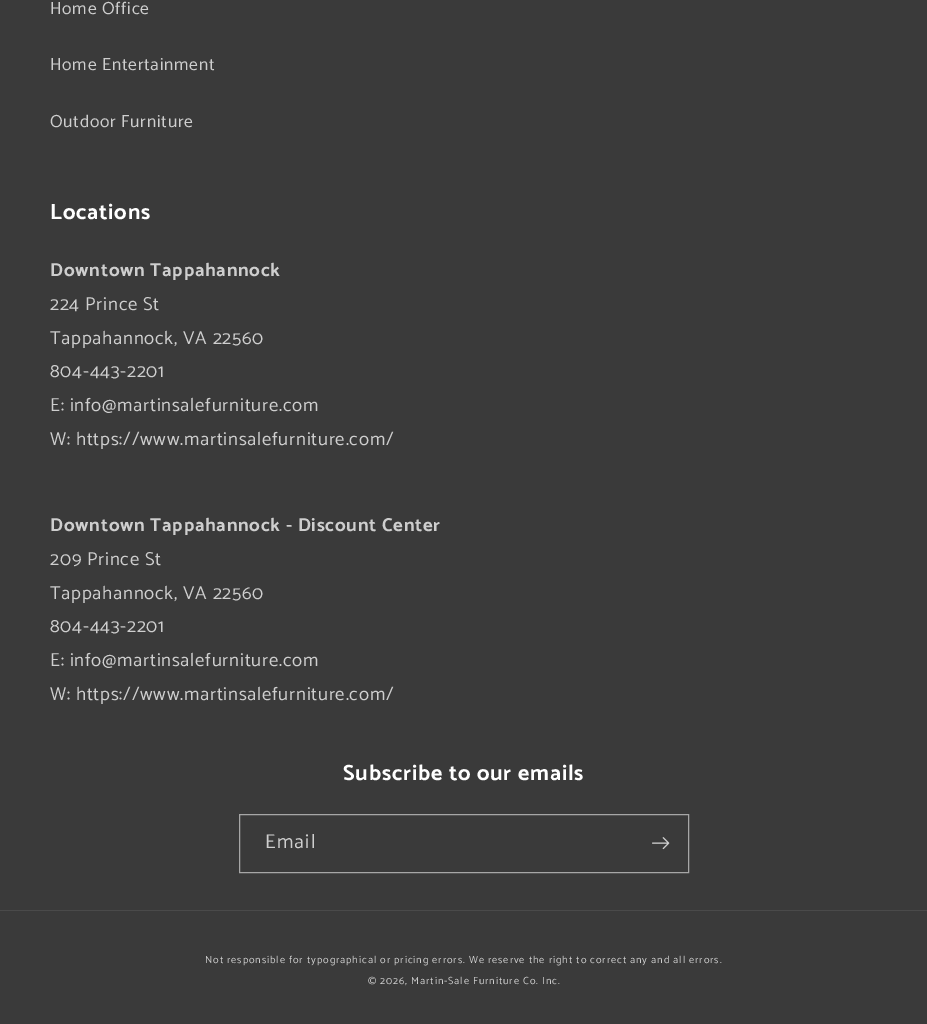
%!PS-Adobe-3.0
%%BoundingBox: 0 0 927 1024
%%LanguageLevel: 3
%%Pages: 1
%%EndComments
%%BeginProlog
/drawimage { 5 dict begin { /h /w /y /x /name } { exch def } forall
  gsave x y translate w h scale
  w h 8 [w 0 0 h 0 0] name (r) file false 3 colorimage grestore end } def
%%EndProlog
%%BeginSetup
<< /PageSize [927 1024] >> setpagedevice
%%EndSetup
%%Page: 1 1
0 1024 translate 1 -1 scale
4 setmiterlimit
0.227 setgray
0 0 927 1024 rectfill
0.651 setgray
239.5 814.5 449 58 rectstroke
(images/1.raw) 652 837 18 13 drawimage
0.29 setgray
0 910 927 1 rectfill
/Catamaran-Regular [17.5 0 0 -17.5 0 0] selectfont
0.808 setgray
50 14 moveto 0.75 0 (Home Office) ashow
50 70 moveto 0.75 0 (Home Entertainment) ashow
50 127 moveto 0.75 0 (Outdoor Furniture) ashow
/Catamaran-Bold [22 0 0 -22 0 0] selectfont
1 setgray
50 219 moveto 0.8 0 (Locations) ashow
/Catamaran-Bold [18.75 0 0 -18.75 0 0] selectfont
0.808 setgray
50 276 moveto 0.75 0 (Downtown Tappahannock) ashow
/Catamaran-Regular [18.75 0 0 -18.75 0 0] selectfont
50 310 moveto 0.75 0 (224 Prince St) ashow
50 344 moveto 0.75 0 (Tappahannock, VA 22560) ashow
50 377 moveto 0.75 0 (804-443-2201) ashow
50 411 moveto 0.75 0 (E: info@martinsalefurniture.com) ashow
50 445 moveto 0.75 0 (W: https://www.martinsalefurniture.com/) ashow
/Catamaran-Bold [18.75 0 0 -18.75 0 0] selectfont
50 531 moveto 0.75 0 (Downtown Tappahannock - Discount Center) ashow
/Catamaran-Regular [18.75 0 0 -18.75 0 0] selectfont
50 565 moveto 0.75 0 (209 Prince St) ashow
50 599 moveto 0.75 0 (Tappahannock, VA 22560) ashow
50 632 moveto 0.75 0 (804-443-2201) ashow
50 666 moveto 0.75 0 (E: info@martinsalefurniture.com) ashow
50 700 moveto 0.75 0 (W: https://www.martinsalefurniture.com/) ashow
/Catamaran-Bold [22 0 0 -22 0 0] selectfont
1 setgray
343 780 moveto 0.8 0 (Subscribe to our emails) ashow
/Catamaran-Regular [20 0 0 -20 0 0] selectfont
0.808 setgray
265 848 moveto 1.25 0 (Email) ashow
/Catamaran-Regular [10.4 0 0 -10.4 0 0] selectfont
205 963 moveto 0.88 0 (Not responsible for typographical or pricing errors. We reserve the right to correct any and all errors.) ashow
368 984 moveto 0.88 0 (© 2026, Martin-Sale Furniture Co. Inc.) ashow
showpage
%%EOF
